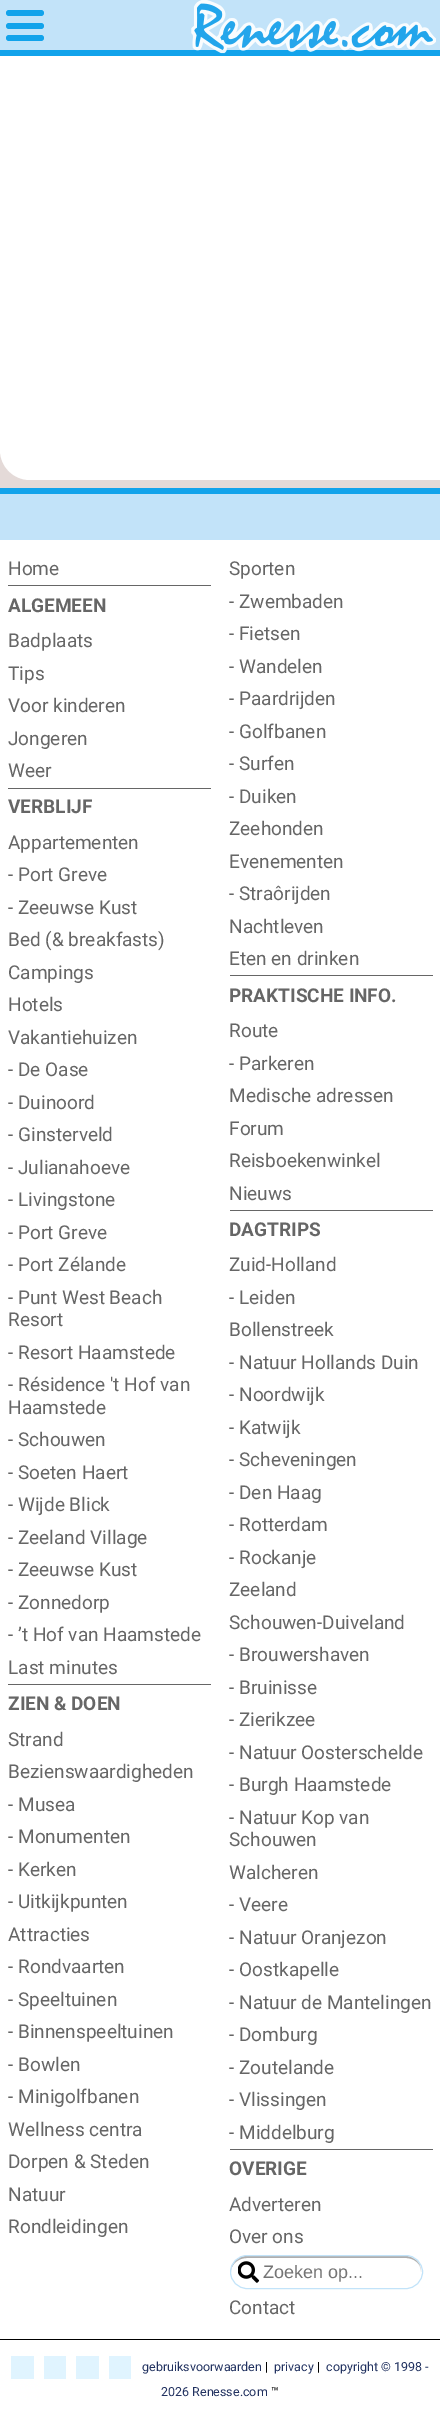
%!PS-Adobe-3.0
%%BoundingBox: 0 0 440 2420
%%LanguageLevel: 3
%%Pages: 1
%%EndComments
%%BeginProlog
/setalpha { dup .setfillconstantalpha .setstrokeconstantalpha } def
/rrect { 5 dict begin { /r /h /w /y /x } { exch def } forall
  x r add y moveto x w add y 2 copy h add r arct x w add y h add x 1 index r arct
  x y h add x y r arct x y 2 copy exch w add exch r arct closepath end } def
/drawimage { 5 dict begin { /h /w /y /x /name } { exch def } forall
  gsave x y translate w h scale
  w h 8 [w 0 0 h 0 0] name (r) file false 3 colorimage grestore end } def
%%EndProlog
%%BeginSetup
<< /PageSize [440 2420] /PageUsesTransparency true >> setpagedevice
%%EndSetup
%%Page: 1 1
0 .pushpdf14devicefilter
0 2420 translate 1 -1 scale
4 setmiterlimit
0.894 0.855 0.847 setrgbcolor
0 0 440 2420 rectfill
1 setgray
newpath 0 -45 moveto 395 -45 lineto 420 -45 440 -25 440 0 curveto 440 480 lineto 30 480 lineto 13.5 480 0 466.5 0 450 curveto closepath fill
0.761 0.89 0.976 setrgbcolor
0 0 440 50 rectfill
0.071 0.639 0.922 setrgbcolor
0 50 440 6 rectfill
6 10 38 6 3 rrect fill
6 23 38 6 3 rrect fill
6 35 38 6 3 rrect fill
(images/1.raw) 191 0 245 54 drawimage
1 setgray
0 540 440 1880 rectfill
0.761 0.89 0.976 setrgbcolor
0 494 440 46 rectfill
0.071 0.639 0.922 setrgbcolor
0 488 440 6 rectfill
0.4 setgray
8 585 203 1 rectfill
8 788 203 1 rectfill
230 975 203 1 rectfill
230 1210 203 1 rectfill
8 1684 203 1 rectfill
230 2149 203 1 rectfill
(images/2.raw) 238 2261 22 22 drawimage
0.859 setgray
newpath 247 2258 moveto 406 2258 lineto 414 2258 421 2264 421 2272 curveto 422 2250 391 2256 379 2256 curveto 273 2256 lineto 261 2256 230 2250 231 2272 curveto 231 2264 238 2258 247 2258 curveto closepath fill
0.2 setalpha
0 setgray
newpath 247 2258 moveto 406 2258 lineto 412 2258 417 2261 420 2265 curveto 417 2260 411 2256 405 2256 curveto 247 2256 lineto 240 2256 234 2260 232 2267 curveto 235 2261 241 2258 247 2258 curveto closepath fill
1 setalpha
0.761 0.89 0.976 setrgbcolor
230.5 2255.5 192 33 16.5 rrect stroke
0 setgray
0 2339 440 1 rectfill
0.878 0.957 1 setrgbcolor
11 2356 23 23 rectfill
44 2356 22 23 rectfill
76 2356 23 23 rectfill
109 2356 22 23 rectfill
/Roboto-Regular [19 0 0 -19 0 0] selectfont
0.4 setgray
8 575 moveto (Home) show
229 575 moveto (Sporten) show
229 608 moveto (- Zwembaden) show
229 640 moveto (- Fietsen) show
229 673 moveto (- Wandelen) show
229 705 moveto (- Paardrijden) show
229 738 moveto (- Golfbanen) show
229 770 moveto (- Surfen) show
/Roboto-Bold [19 0 0 -19 0 0] selectfont
8 612 moveto (ALGEMEEN) show
/Roboto-Regular [19 0 0 -19 0 0] selectfont
8 647 moveto (Badplaats) show
8 680 moveto (Tips) show
8 712 moveto (Voor kinderen) show
8 745 moveto (Jongeren) show
8 777 moveto (Weer) show
229 803 moveto (- Duiken) show
/Roboto-Bold [19 0 0 -19 0 0] selectfont
8 813 moveto (VERBLIJF) show
/Roboto-Regular [19 0 0 -19 0 0] selectfont
229 835 moveto (Zeehonden) show
8 849 moveto (Appartementen) show
229 868 moveto (Evenementen) show
8 881 moveto (- Port Greve) show
229 900 moveto (- Straôrijden) show
8 914 moveto (- Zeeuwse Kust) show
229 933 moveto (Nachtleven) show
8 946 moveto (Bed \(& breakfasts\)) show
229 965 moveto (Eten en drinken) show
8 979 moveto (Campings) show
8 1011 moveto (Hotels) show
/Roboto-Bold [19 0 0 -19 0 0] selectfont
229 1002 moveto (PRAKTISCHE INFO.) show
/Roboto-Regular [19 0 0 -19 0 0] selectfont
229 1037 moveto (Route) show
229 1070 moveto (- Parkeren) show
8 1044 moveto (Vakantiehuizen) show
8 1076 moveto (- De Oase) show
8 1109 moveto (- Duinoord) show
229 1102 moveto (Medische adressen) show
8 1141 moveto (- Ginsterveld) show
229 1135 moveto (Forum) show
8 1174 moveto (- Julianahoeve) show
229 1167 moveto (Reisboekenwinkel) show
8 1206 moveto (- Livingstone) show
229 1200 moveto (Nieuws) show
8 1239 moveto (- Port Greve) show
/Roboto-Bold [19 0 0 -19 0 0] selectfont
229 1236 moveto (DAGTRIPS) show
/Roboto-Regular [19 0 0 -19 0 0] selectfont
229 1271 moveto (Zuid-Holland) show
229 1304 moveto (- Leiden) show
229 1336 moveto (Bollenstreek) show
229 1369 moveto (- Natuur Hollands Duin) show
229 1401 moveto (- Noordwijk) show
229 1434 moveto (- Katwijk) show
229 1466 moveto (- Scheveningen) show
229 1499 moveto (- Den Haag) show
229 1531 moveto (- Rotterdam) show
229 1564 moveto (- Rockanje) show
229 1596 moveto (Zeeland) show
229 1629 moveto (Schouwen-Duiveland) show
229 1661 moveto (- Brouwershaven) show
229 1694 moveto (- Bruinisse) show
229 1726 moveto (- Zierikzee) show
229 1759 moveto (- Natuur Oosterschelde) show
229 1791 moveto (- Burgh Haamstede) show
229 1824 moveto (- Natuur Kop van) show
229 1846 moveto (Schouwen) show
8 1271 moveto (- Port Zélande) show
8 1304 moveto (- Punt West Beach) show
8 1326 moveto (Resort) show
8 1359 moveto (- Resort Haamstede) show
8 1391 moveto (- Résidence 't Hof van) show
8 1414 moveto (Haamstede) show
8 1446 moveto (- Schouwen) show
8 1479 moveto (- Soeten Haert) show
8 1511 moveto (- Wijde Blick) show
8 1544 moveto (- Zeeland Village) show
8 1576 moveto (- Zeeuwse Kust) show
8 1609 moveto (- Zonnedorp) show
8 1641 moveto (- ’t Hof van Haamstede) show
8 1674 moveto (Last minutes) show
/Roboto-Bold [19 0 0 -19 0 0] selectfont
8 1710 moveto (ZIEN & DOEN) show
/Roboto-Regular [19 0 0 -19 0 0] selectfont
8 1746 moveto (Strand) show
8 1778 moveto (Bezienswaardigheden) show
8 1811 moveto (- Musea) show
8 1843 moveto (- Monumenten) show
8 1876 moveto (- Kerken) show
8 1908 moveto (- Uitkijkpunten) show
8 1941 moveto (Attracties) show
8 1973 moveto (- Rondvaarten) show
8 2006 moveto (- Speeltuinen) show
8 2038 moveto (- Binnenspeeltuinen) show
8 2071 moveto (- Bowlen) show
8 2103 moveto (- Minigolfbanen) show
8 2136 moveto (Wellness centra) show
8 2168 moveto (Dorpen & Steden) show
8 2201 moveto (Natuur) show
8 2233 moveto (Rondleidingen) show
229 1879 moveto (Walcheren) show
229 1911 moveto (- Veere) show
229 1944 moveto (- Natuur Oranjezon) show
229 1976 moveto (- Oostkapelle) show
229 2009 moveto (- Natuur de Mantelingen) show
229 2041 moveto (- Domburg) show
229 2074 moveto (- Zoutelande) show
229 2106 moveto (- Vlissingen) show
229 2139 moveto (- Middelburg) show
/Roboto-Bold [19 0 0 -19 0 0] selectfont
229 2175 moveto (OVERIGE) show
/Roboto-Regular [19 0 0 -19 0 0] selectfont
229 2211 moveto (Adverteren) show
229 2243 moveto (Over ons) show
/LiberationSans-Regular [18 0 0 -18 0 0] selectfont
0.459 setgray
263 2278 moveto (Zoeken op...) show
/Roboto-Regular [19 0 0 -19 0 0] selectfont
0.4 setgray
229 2314 moveto (Contact) show
/Roboto-Regular [12.5 0 0 -12.5 0 0] selectfont
0.133 0.196 0.376 setrgbcolor
142 2371 moveto (gebruiksvoorwaarden) show
0 setgray
265 2371 moveto (|) show
0.133 0.196 0.376 setrgbcolor
274 2371 moveto (privacy) show
0 setgray
317 2371 moveto (|) show
0.133 0.196 0.376 setrgbcolor
326 2371 moveto (copyright © 1998 -) show
161 2396 moveto (2026 Renesse.com) show
0 setgray
271 2396 moveto (™) show
.poppdf14devicefilter showpage
%%EOF
